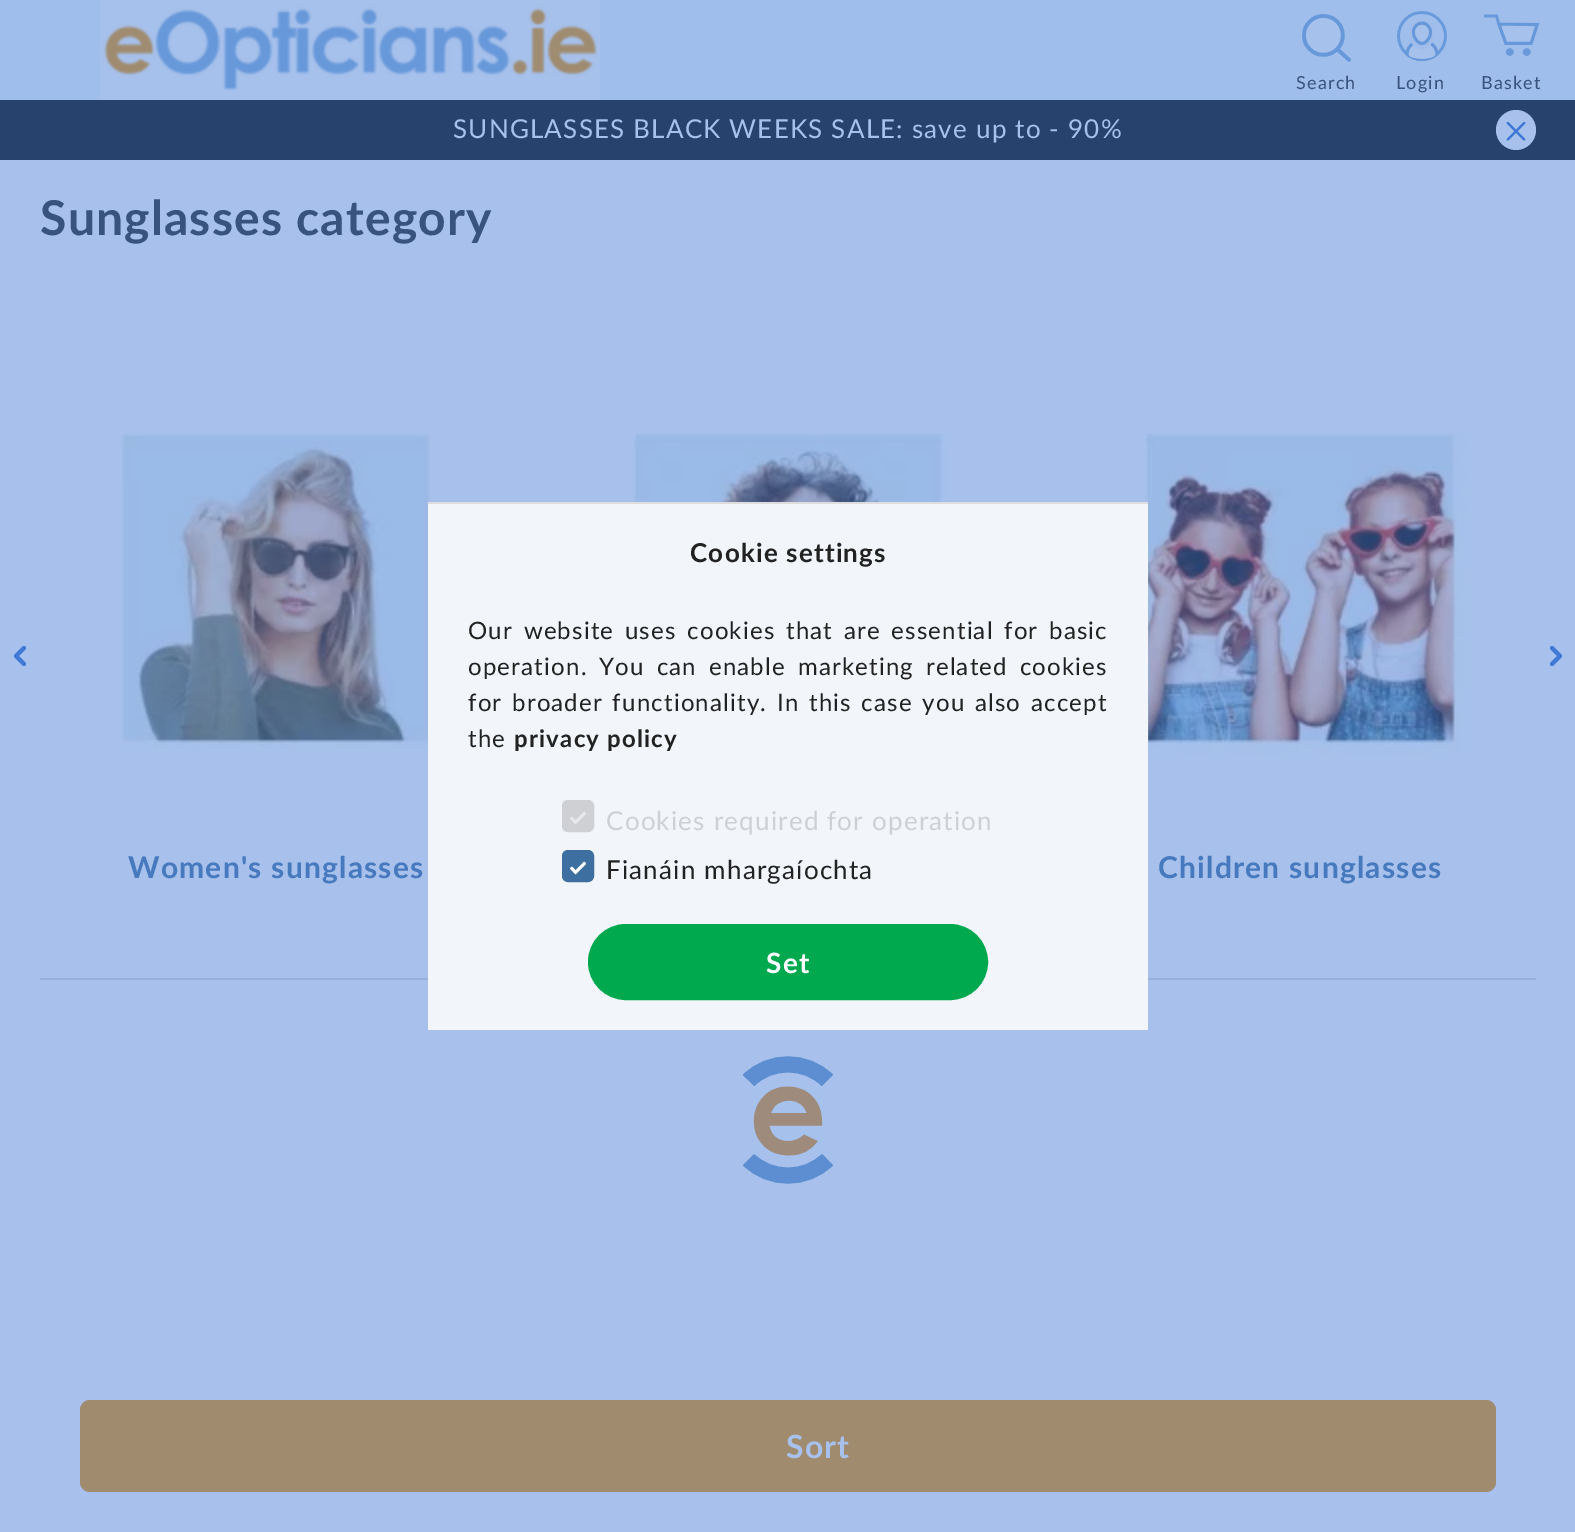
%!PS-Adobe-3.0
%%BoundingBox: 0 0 1575 1532
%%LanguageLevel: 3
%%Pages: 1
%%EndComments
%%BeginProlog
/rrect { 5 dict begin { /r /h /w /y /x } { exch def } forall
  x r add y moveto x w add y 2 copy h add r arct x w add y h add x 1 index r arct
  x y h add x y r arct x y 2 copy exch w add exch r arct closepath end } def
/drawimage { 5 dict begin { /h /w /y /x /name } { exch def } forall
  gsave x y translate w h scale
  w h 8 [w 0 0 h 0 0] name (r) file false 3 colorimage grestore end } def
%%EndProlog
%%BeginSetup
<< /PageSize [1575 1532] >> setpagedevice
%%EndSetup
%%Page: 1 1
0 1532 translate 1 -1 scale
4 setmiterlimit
0.655 0.757 0.925 setrgbcolor
0 0 1575 1532 rectfill
0.627 0.745 0.922 setrgbcolor
0 0 1575 100 rectfill
(images/1.raw) 100 0 500 100 drawimage
(images/2.raw) 1302 14 50 48 drawimage
(images/3.raw) 1397 11 50 50 drawimage
(images/4.raw) 1484 14 56 42 drawimage
0.153 0.259 0.424 setrgbcolor
0 100 1575 60 rectfill
0.655 0.757 0.925 setrgbcolor
newpath 1516 130 20 0 360 arc closepath fill
(images/5.raw) 1506 122 20 19 drawimage
0.247 0.471 0.835 setrgbcolor
4 setlinewidth
1 setlinecap
1 setlinejoin
newpath 24 664 moveto 16 656 lineto 24 648 lineto stroke
newpath 1552 648 moveto 1560 656 lineto 1552 664 lineto stroke
(images/6.raw) 633 433 313 69 drawimage
(images/7.raw) 121 433 309 318 drawimage
(images/8.raw) 1144 433 322 321 drawimage
0.588 0.69 0.859 setrgbcolor
40 978 1496 2 rectfill
0.361 0.557 0.82 setrgbcolor
16 setlinewidth
0 setlinecap
0 setlinejoin
newpath 748.5 1080.5 moveto 770 1059 806 1059 827.5 1080.5 curveto stroke
newpath 827.5 1159.5 moveto 806 1181 770 1181 748.5 1159.5 curveto stroke
(images/9.raw) 753 1086 70 70 drawimage
0.627 0.545 0.435 setrgbcolor
80 1400 1416 92 10 rrect fill
0.949 0.965 0.984 setrgbcolor
428 504 720 526 rectfill
0.867 setgray
428 502 720 2 rectfill
0.808 0.816 0.827 setrgbcolor
563 801 30 30 5 rrect gsave fill grestore
2 setlinewidth
stroke
(images/10.raw) 570 811 16 14 drawimage
0.239 0.435 0.631 setrgbcolor
563 851 30 30 5 rrect gsave fill grestore
stroke
(images/11.raw) 570 861 16 14 drawimage
0 0.659 0.306 setrgbcolor
589 925 398 74 37 rrect gsave fill grestore
stroke
/Lato-Regular [18 0 0 -18 0 0] selectfont
0.22 0.325 0.49 setrgbcolor
1296 89 moveto 1.2 0 (Search) ashow
1396 89 moveto 1.2 0 (Login) ashow
1481 89 moveto 1.2 0 (Basket) ashow
/Lato-Regular [26 0 0 -26 0 0] selectfont
0.655 0.757 0.925 setrgbcolor
453 138 moveto 1.2 0 (SUNGLASSES BLACK WEEKS SALE: save up to - 90%) ashow
/Lato-Bold [48 0 0 -48 0 0] selectfont
0.22 0.325 0.49 setrgbcolor
40 235 moveto 1.2 0 (Sunglasses category) ashow
/Lato-Bold [30 0 0 -30 0 0] selectfont
0.275 0.475 0.741 setrgbcolor
128 878 moveto 1.2 0 (Women's sunglasses) ashow
1158 878 moveto 1.2 0 (Children sunglasses) ashow
/Lato-Bold [32 0 0 -32 0 0] selectfont
0.655 0.757 0.925 setrgbcolor
786 1458 moveto 1.2 0 (Sort) ashow
/Lato-Bold [26 0 0 -26 0 0] selectfont
0.133 setgray
690 562 moveto 1.2 0 (Cookie settings) ashow
/Lato-Regular [24 0 0 -24 0 0] selectfont
468 639 moveto 3.25 0 32 1.2 0 (Our website uses cookies that are essential for basic) awidthshow
468 675 moveto 4.5 0 32 1.2 0 (operation. You can enable marketing related cookies) awidthshow
468 711 moveto 2.25 0 32 1.2 0 (for broader functionality. In this case you also accept) awidthshow
468 747 moveto 1.2 0 (the) ashow
/Lato-Bold [24 0 0 -24 0 0] selectfont
514 747 moveto 1.2 0 (privacy policy) ashow
/Lato-Regular [26 0 0 -26 0 0] selectfont
0.808 0.816 0.827 setrgbcolor
606 830 moveto 1.2 0 (Cookies required for operation) ashow
0.133 setgray
606 879 moveto 1.2 0 (Fianáin mhargaíochta) ashow
/Lato-Bold [28 0 0 -28 0 0] selectfont
1 setgray
766 973 moveto 1.2 0 (Set) ashow
showpage
%%EOF
